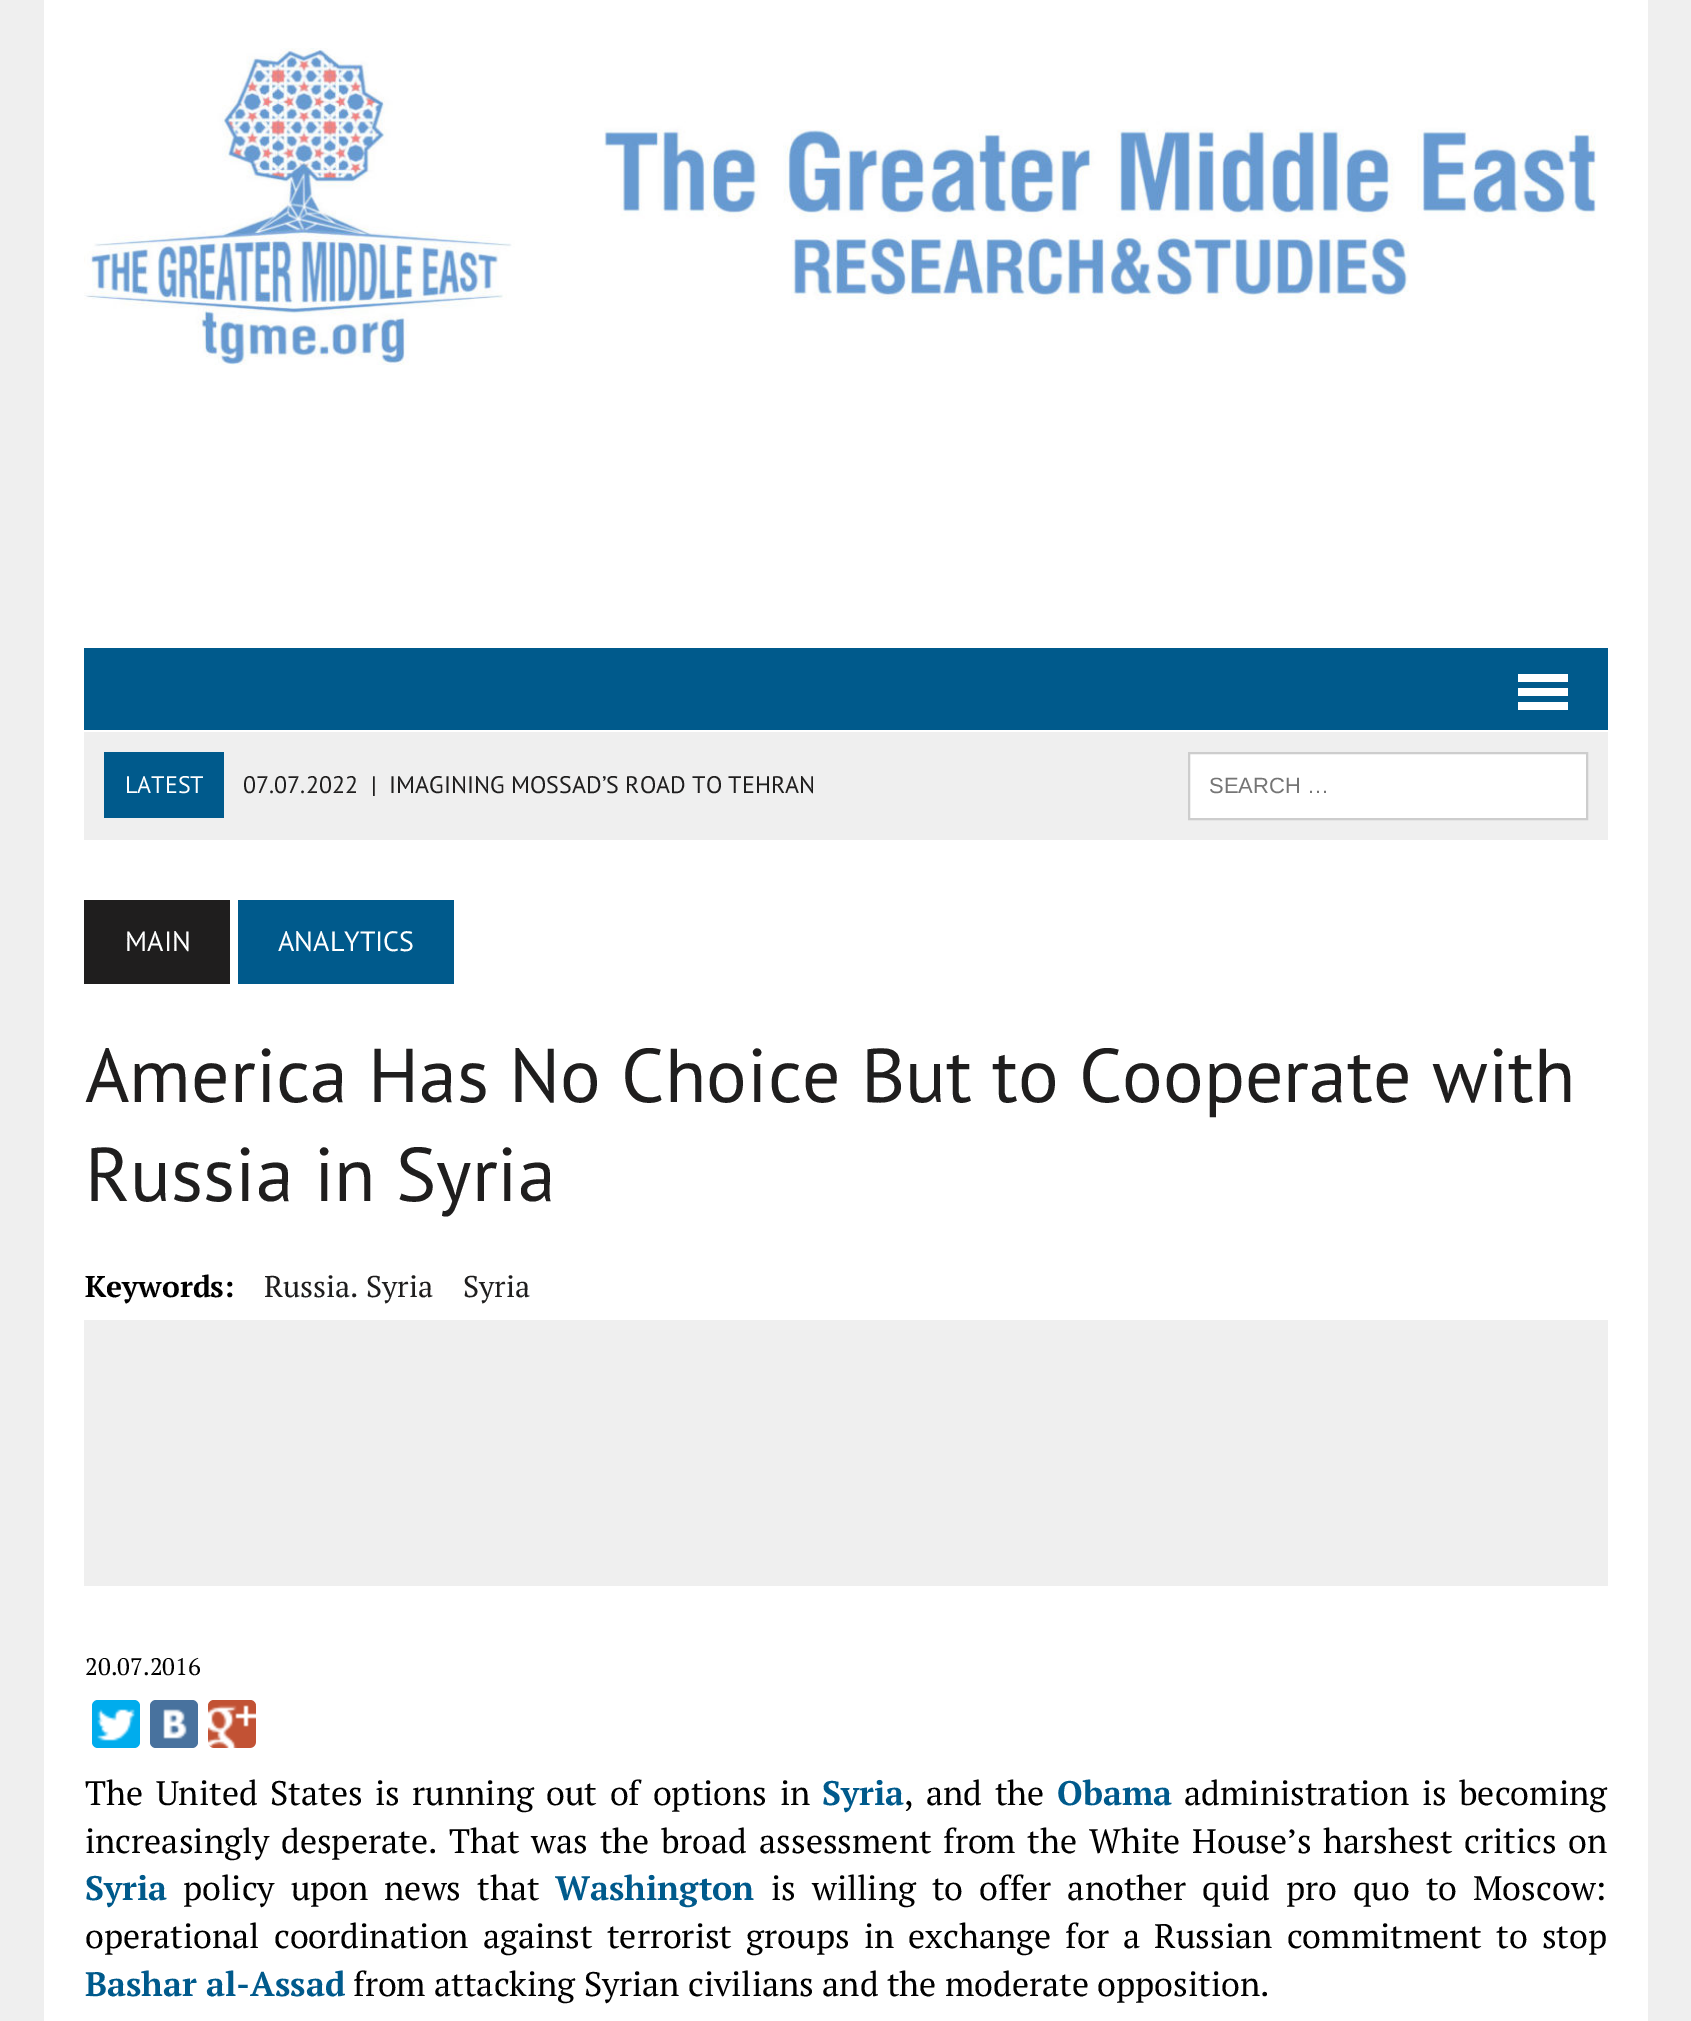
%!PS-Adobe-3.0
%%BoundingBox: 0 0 1691 2021
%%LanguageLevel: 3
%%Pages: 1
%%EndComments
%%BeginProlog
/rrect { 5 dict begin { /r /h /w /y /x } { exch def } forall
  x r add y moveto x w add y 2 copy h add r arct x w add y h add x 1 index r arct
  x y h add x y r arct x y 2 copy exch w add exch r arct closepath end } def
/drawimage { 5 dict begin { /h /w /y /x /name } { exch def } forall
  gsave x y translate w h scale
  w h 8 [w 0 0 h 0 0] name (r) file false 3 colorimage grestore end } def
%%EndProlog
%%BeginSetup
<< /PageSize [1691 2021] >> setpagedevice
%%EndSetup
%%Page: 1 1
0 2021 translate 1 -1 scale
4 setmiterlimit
0.937 setgray
0 0 1691 2021 rectfill
1 setgray
44 0 1604 2021 rectfill
(images/1.raw) 84 48 1512 317 drawimage
0 0.353 0.549 setrgbcolor
84 648 1524 82 rectfill
1 setgray
1518 674 50 8 rectfill
1518 688 50 8 rectfill
1518 702 50 8 rectfill
0.937 setgray
84 732 1524 108 rectfill
0 0.353 0.549 setrgbcolor
104 752 120 66 rectfill
1 setgray
newpath 1189 753 moveto 1587 753 lineto 1587 819 lineto 1189 819 lineto closepath gsave fill grestore
0.804 setgray
2 setlinewidth
stroke
0.122 0.118 0.118 setrgbcolor
84 900 146 84 rectfill
0 0.353 0.549 setrgbcolor
238 900 216 84 rectfill
0.937 setgray
84 1320 1524 266 rectfill
0 0.675 0.929 setrgbcolor
92 1700 48 48 6 rrect fill
(images/2.raw) 97 1709 38 32 drawimage
0.282 0.447 0.62 setrgbcolor
150 1700 48 48 6 rrect fill
(images/3.raw) 163 1709 24 30 drawimage
0.761 0.322 0.204 setrgbcolor
208 1700 48 48 6 rrect fill
(images/4.raw) 208 1705 48 43 drawimage
/PTSans-Regular [24 0 0 -24 0 0] selectfont
1 setgray
125 793 moveto (LATEST) show
0.122 0.118 0.118 setrgbcolor
243 793 moveto (07.07.2022) show
371 793 moveto (|) show
389 793 moveto (IMAGINING MOSSAD’S ROAD TO TEHRAN) show
/LiberationSans-Regular [22 0 0 -22 0 0] selectfont
0.459 setgray
1209 793 moveto (SEARCH …) show
/PTSans-Regular [28 0 0 -28 0 0] selectfont
1 setgray
125 951 moveto (MAIN) show
278 951 moveto (ANALYTICS) show
/PTSans-Regular [76 0 0 -76 0 0] selectfont
0.122 0.118 0.118 setrgbcolor
85 1102 moveto (America Has No Choice But to Cooperate with) show
85 1201 moveto (Russia in Syria) show
/PTSerif-Bold [30 0 0 -30 0 0] selectfont
0 setgray
85 1297 moveto (Keywords:) show
/PTSerif-Regular [30 0 0 -30 0 0] selectfont
0.122 0.118 0.118 setrgbcolor
264 1297 moveto (Russia. Syria) show
463 1297 moveto (Syria) show
/PTSerif-Regular [24 0 0 -24 0 0] selectfont
0 setgray
85 1675 moveto (20.07.2016) show
/PTSerif-Regular [34 0 0 -34 0 0] selectfont
85 1805 moveto 4.25 0 32 (The United States is running out of options in) widthshow
/PTSerif-Bold [34 0 0 -34 0 0] selectfont
0 0.353 0.549 setrgbcolor
822 1805 moveto (Syria) show
/PTSerif-Regular [34 0 0 -34 0 0] selectfont
0 setgray
904 1805 moveto 4.25 0 32 (, and the) widthshow
/PTSerif-Bold [34 0 0 -34 0 0] selectfont
0 0.353 0.549 setrgbcolor
1057 1805 moveto (Obama) show
/PTSerif-Regular [34 0 0 -34 0 0] selectfont
0 setgray
1184 1805 moveto 4 0 32 (administration is becoming) widthshow
85 1853 moveto 3.4 0 32 (increasingly desperate. That was the broad assessment from the White House’s harshest critics on) widthshow
/PTSerif-Bold [34 0 0 -34 0 0] selectfont
0 0.353 0.549 setrgbcolor
85 1900 moveto (Syria) show
/PTSerif-Regular [34 0 0 -34 0 0] selectfont
0 setgray
183 1900 moveto 7.75 0 32 (policy upon news that) widthshow
/PTSerif-Bold [34 0 0 -34 0 0] selectfont
0 0.353 0.549 setrgbcolor
555 1900 moveto (Washington) show
/PTSerif-Regular [34 0 0 -34 0 0] selectfont
0 setgray
771 1900 moveto 7.75 0 32 (is willing to offer another quid pro quo to Moscow:) widthshow
85 1948 moveto 5.9 0 32 (operational coordination against terrorist groups in exchange for a Russian commitment to stop) widthshow
/PTSerif-Bold [34 0 0 -34 0 0] selectfont
0 0.353 0.549 setrgbcolor
85 1996 moveto (Bashar al-Assad) show
/PTSerif-Regular [34 0 0 -34 0 0] selectfont
0 setgray
353 1996 moveto (from attacking Syrian civilians and the moderate opposition.) show
showpage
%%EOF
